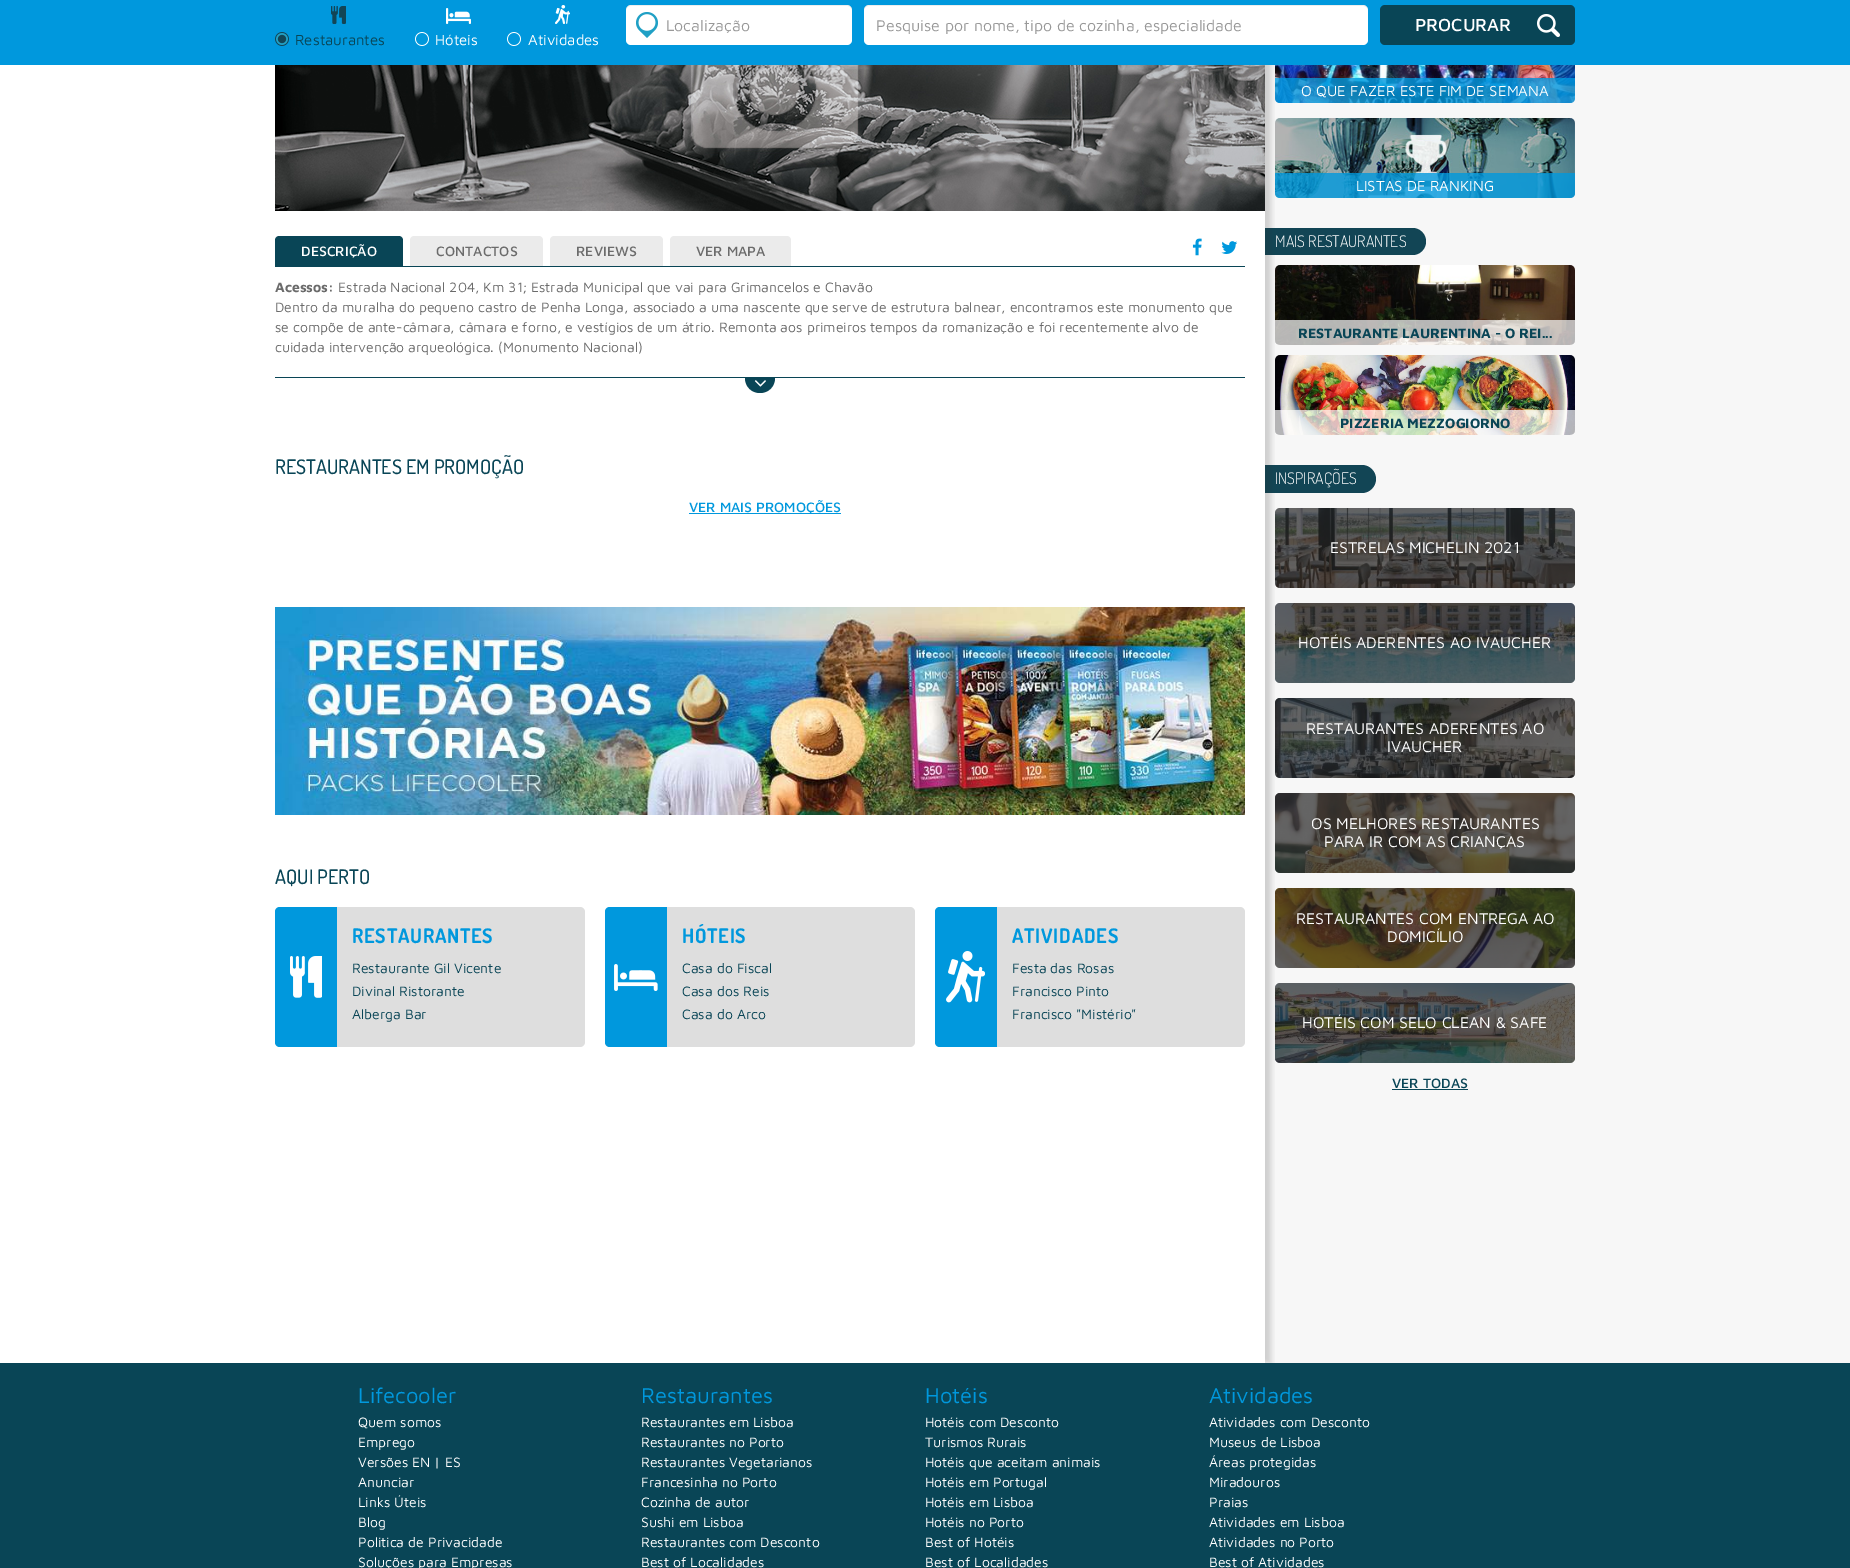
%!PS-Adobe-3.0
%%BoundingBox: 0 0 1850 1568
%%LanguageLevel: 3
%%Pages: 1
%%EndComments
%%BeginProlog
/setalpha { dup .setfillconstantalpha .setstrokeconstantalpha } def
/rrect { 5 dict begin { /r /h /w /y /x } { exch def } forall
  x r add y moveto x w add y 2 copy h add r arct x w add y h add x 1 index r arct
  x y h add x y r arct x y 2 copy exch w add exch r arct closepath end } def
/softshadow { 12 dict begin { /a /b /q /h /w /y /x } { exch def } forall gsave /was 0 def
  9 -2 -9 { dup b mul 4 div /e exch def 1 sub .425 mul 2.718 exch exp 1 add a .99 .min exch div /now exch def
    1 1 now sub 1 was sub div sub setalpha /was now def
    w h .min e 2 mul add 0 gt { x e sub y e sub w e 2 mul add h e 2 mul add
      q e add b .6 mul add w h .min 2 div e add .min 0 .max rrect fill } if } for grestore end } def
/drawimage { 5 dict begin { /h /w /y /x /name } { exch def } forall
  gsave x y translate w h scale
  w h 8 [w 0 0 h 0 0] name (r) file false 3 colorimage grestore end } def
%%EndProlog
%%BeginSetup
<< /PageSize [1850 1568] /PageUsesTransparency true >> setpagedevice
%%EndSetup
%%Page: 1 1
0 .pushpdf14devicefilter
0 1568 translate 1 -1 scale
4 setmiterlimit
1 setgray
0 0 1850 1568 rectfill
0.969 setgray
1265 65 585 1298 rectfill
(images/16.raw) 1275 65 300 38 drawimage
0.8 setalpha
0 0.596 0.867 setrgbcolor
newpath 1275 78 moveto 1575 78 lineto 1575 98 lineto 1575 101 1573 103 1570 103 curveto 1280 103 lineto 1277 103 1275 101 1275 98 curveto closepath fill
1 setalpha
(images/17.raw) 1275 118 300 80 drawimage
0.8 setalpha
newpath 1275 173 moveto 1575 173 lineto 1575 193 lineto 1575 196 1573 198 1570 198 curveto 1280 198 lineto 1277 198 1275 196 1275 193 curveto closepath fill
1 setalpha
0.071 0.271 0.333 setrgbcolor
newpath 1265 228 moveto 1412.5 228 lineto 1420 228 1426 234 1426 241.5 curveto 1426 249 1420 255 1412.5 255 curveto 1265 255 lineto closepath fill
(images/18.raw) 1275 265 300 80 drawimage
0.7 setalpha
1 setgray
newpath 1275 320 moveto 1575 320 lineto 1575 340 lineto 1575 343 1573 345 1570 345 curveto 1280 345 lineto 1277 345 1275 343 1275 340 curveto closepath fill
1 setalpha
(images/19.raw) 1275 355 300 80 drawimage
0.7 setalpha
newpath 1275 410 moveto 1575 410 lineto 1575 430 lineto 1575 433 1573 435 1570 435 curveto 1280 435 lineto 1277 435 1275 433 1275 430 curveto closepath fill
1 setalpha
0.071 0.271 0.333 setrgbcolor
newpath 1265 465 moveto 1362 465 lineto 1369.5 465 1376 471.5 1376 479 curveto 1376 486.5 1369.5 493 1362 493 curveto 1265 493 lineto closepath fill
(images/20.raw) 1275 508 300 80 drawimage
0.7 setalpha
0.137 setgray
1275 508 300 80 5 rrect fill
1 setalpha
(images/21.raw) 1275 603 300 80 drawimage
0.7 setalpha
1275 603 300 80 5 rrect fill
1 setalpha
(images/22.raw) 1275 698 300 80 drawimage
0.7 setalpha
1275 698 300 80 5 rrect fill
1 setalpha
(images/23.raw) 1275 793 300 80 drawimage
0.7 setalpha
1275 793 300 80 5 rrect fill
1 setalpha
(images/24.raw) 1275 888 300 80 drawimage
0.7 setalpha
1275 888 300 80 5 rrect fill
1 setalpha
(images/25.raw) 1275 983 300 80 drawimage
0.7 setalpha
1275 983 300 80 5 rrect fill
gsave
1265 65 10 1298 rectclip
1 setalpha
0.161 setgray
281 -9 990 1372 0 3 0.2 softshadow
grestore
1 setalpha
0 0.596 0.867 setrgbcolor
0 0 1850 65 rectfill
1 setgray
626 5 226 40 5 rrect fill
(images/1.raw) 636 12 22 26 drawimage
0.07 setalpha
0 setgray
newpath 631 6 moveto 847 6 lineto 850 6 852 8 852 11 curveto 852 10 lineto 852 7 850 5 847 5 curveto 631 5 lineto 628 5 626 7 626 10 curveto 626 11 lineto 626 8 628 6 631 6 curveto closepath fill
1 setalpha
1 setgray
864 5 504 40 5 rrect fill
0.07 setalpha
0 setgray
newpath 869 6 moveto 1363 6 lineto 1366 6 1368 8 1368 11 curveto 1368 10 lineto 1368 7 1366 5 1363 5 curveto 869 5 lineto 866 5 864 7 864 10 curveto 864 11 lineto 864 8 866 6 869 6 curveto closepath fill
1 setalpha
0.035 0.271 0.337 setrgbcolor
1380 5 195 40 5 rrect fill
(images/2.raw) 1537 14 23 23 drawimage
(images/3.raw) 331 6 15 18 drawimage
(images/4.raw) 275 32 14 14 drawimage
(images/5.raw) 446 8 25 16 drawimage
(images/6.raw) 415 32 14 14 drawimage
(images/7.raw) 555 5 15 19 drawimage
(images/6.raw) 507 32 14 14 drawimage
(images/8.raw) 275 65 990 146 drawimage
275 266 970 1 rectfill
newpath 279 236 moveto 399 236 lineto 401 236 403 238 403 240 curveto 403 266 lineto 275 266 lineto 275 240 lineto 275 238 277 236 279 236 curveto closepath fill
0.922 setgray
newpath 414 236 moveto 539 236 lineto 541 236 543 238 543 240 curveto 543 266 lineto 410 266 lineto 410 240 lineto 410 238 412 236 414 236 curveto closepath fill
newpath 554 236 moveto 659 236 lineto 661 236 663 238 663 240 curveto 663 266 lineto 550 266 lineto 550 240 lineto 550 238 552 236 554 236 curveto closepath fill
newpath 674 236 moveto 787 236 lineto 789 236 791 238 791 240 curveto 791 266 lineto 670 266 lineto 670 240 lineto 670 238 672 236 674 236 curveto closepath fill
(images/9.raw) 1192 238 10 18 drawimage
(images/10.raw) 1221 241 17 13 drawimage
0.035 0.271 0.337 setrgbcolor
275 377 970 1 rectfill
newpath 745 378 moveto 775 378 lineto 775 386.5 768.5 393 760 393 curveto 751.5 393 745 386.5 745 378 curveto closepath fill
(images/11.raw) 754 380 12 7 drawimage
0 0.596 0.867 setrgbcolor
689 513 152 1 rectfill
(images/12.raw) 275 607 970 208 drawimage
0.871 setgray
275 907 310 140 5 rrect fill
0 0.596 0.867 setrgbcolor
newpath 280 907 moveto 337 907 lineto 337 1047 lineto 280 1047 lineto 277 1047 275 1045 275 1042 curveto 275 912 lineto 275 909 277 907 280 907 curveto closepath fill
(images/13.raw) 290 956 32 42 drawimage
0.871 setgray
605 907 310 140 5 rrect fill
0 0.596 0.867 setrgbcolor
newpath 610 907 moveto 667 907 lineto 667 1047 lineto 610 1047 lineto 607 1047 605 1045 605 1042 curveto 605 912 lineto 605 909 607 907 610 907 curveto closepath fill
(images/14.raw) 614 964 44 27 drawimage
0.871 setgray
935 907 310 140 5 rrect fill
0 0.596 0.867 setrgbcolor
newpath 940 907 moveto 997 907 lineto 997 1047 lineto 940 1047 lineto 937 1047 935 1045 935 1042 curveto 935 912 lineto 935 909 937 907 940 907 curveto closepath fill
(images/15.raw) 946 951 39 52 drawimage
0.035 0.271 0.337 setrgbcolor
1392 1089 76 1 rectfill
0 1363 1850 205 rectfill
/MavenPro-Regular [16 0 0 -16 0 0] selectfont
0.6 setgray
666 31 moveto (Localização) show
gsave
876 16 480 18 rectclip
876 31 moveto (Pesquise por nome, tipo de cozinha, especialidade) show
grestore
/MavenPro-Medium [18 0 0 -18 0 0] selectfont
1 setgray
1415 31 moveto (PROCURAR) show
/MavenPro-Regular [15 0 0 -15 0 0] selectfont
0.035 0.271 0.337 setrgbcolor
295 45 moveto (Restaurantes) show
1 setgray
435 45 moveto (Hóteis) show
528 45 moveto (Atividades) show
/MavenPro-Medium [14 0 0 -14 0 0] selectfont
301 256 moveto (DESCRIÇÃO) show
0.42 setgray
436 256 moveto (CONTACTOS) show
576 256 moveto (REVIEWS) show
696 256 moveto (VER MAPA) show
/MavenPro-Bold [14 0 0 -14 0 0] selectfont
275 292 moveto (Acessos:) show
/MavenPro-Regular [14 0 0 -14 0 0] selectfont
338 292 moveto (Estrada Nacional 204, Km 31; Estrada Municipal que vai para Grimancelos e Chavão) show
275 312 moveto (Dentro da muralha do pequeno castro de Penha Longa, associado a uma nascente que serve de estrutura balnear, encontramos este monumento que) show
275 332 moveto (se compõe de ante-câmara, câmara e forno, e vestígios de um átrio. Remonta aos primeiros tempos da romanização e foi recentemente alvo de) show
275 352 moveto (cuidada intervenção arqueológica. \(Monumento Nacional\)) show
/Dosis-Medium [20 0 0 -20 0 0] selectfont
0.035 0.271 0.337 setrgbcolor
275 474 moveto (RESTAURANTES EM PROMOÇÃO) show
/MavenPro-Medium [14 0 0 -14 0 0] selectfont
0 0.596 0.867 setrgbcolor
689 512 moveto (VER MAIS PROMOÇÕES) show
/Dosis-Medium [20 0 0 -20 0 0] selectfont
0.035 0.271 0.337 setrgbcolor
275 884 moveto (AQUI PERTO) show
/Dosis-Bold [20 0 0 -20 0 0] selectfont
0 0.596 0.867 setrgbcolor
352 943 moveto 0.75 0 (RESTAURANTES) ashow
/MavenPro-Regular [14 0 0 -14 0 0] selectfont
0.035 0.271 0.337 setrgbcolor
352 973 moveto (Restaurante Gil Vicente) show
352 996 moveto (Divinal Ristorante) show
352 1019 moveto (Alberga Bar) show
/Dosis-Bold [20 0 0 -20 0 0] selectfont
0 0.596 0.867 setrgbcolor
682 943 moveto 0.75 0 (HÓTEIS) ashow
/MavenPro-Regular [14 0 0 -14 0 0] selectfont
0.035 0.271 0.337 setrgbcolor
682 973 moveto (Casa do Fiscal) show
682 996 moveto (Casa dos Reis) show
682 1019 moveto (Casa do Arco) show
/Dosis-Bold [20 0 0 -20 0 0] selectfont
0 0.596 0.867 setrgbcolor
1012 943 moveto 0.75 0 (ATIVIDADES) ashow
/MavenPro-Regular [14 0 0 -14 0 0] selectfont
0.035 0.271 0.337 setrgbcolor
1012 973 moveto (Festa das Rosas) show
1012 996 moveto (Francisco Pinto) show
1012 1019 moveto (Francisco "Mistério") show
/MavenPro-Regular [15 0 0 -15 0 0] selectfont
1 setgray
1301 96 moveto (O QUE FAZER ESTE FIM DE SEMANA) show
1356 191 moveto (LISTAS DE RANKING) show
/Dosis-Light [16 0 0 -16 0 0] selectfont
1275 247 moveto (MAIS RESTAURANTES) show
/MavenPro-Bold [14 0 0 -14 0 0] selectfont
0.035 0.271 0.337 setrgbcolor
1298 338 moveto (RESTAURANTE LAURENTINA - O REI...) show
1340 428 moveto (PIZZERIA MEZZOGIORNO) show
/Dosis-Light [16 0 0 -16 0 0] selectfont
1 setgray
1275 484 moveto (INSPIRAÇÕES) show
/MavenPro-Regular [16 0 0 -16 0 0] selectfont
1330 553 moveto (ESTRELAS MICHELIN 2021) show
1298 648 moveto (HOTÉIS ADERENTES AO IVAUCHER) show
1306 734 moveto (RESTAURANTES ADERENTES AO) show
1387 752 moveto (IVAUCHER) show
1311 829 moveto (OS MELHORES RESTAURANTES) show
1324 847 moveto (PARA IR COM AS CRIANÇAS) show
1296 924 moveto (RESTAURANTES COM ENTREGA AO) show
1387 942 moveto (DOMICÍLIO) show
1302 1028 moveto (HOTÉIS COM SELO CLEAN & SAFE) show
/MavenPro-Medium [14 0 0 -14 0 0] selectfont
0.035 0.271 0.337 setrgbcolor
1392 1088 moveto (VER TODAS) show
/MavenPro-Regular [22 0 0 -22 0 0] selectfont
0 0.596 0.867 setrgbcolor
358 1403 moveto (Lifecooler) show
/MavenPro-Regular [14 0 0 -14 0 0] selectfont
1 setgray
358 1427 moveto (Quem somos) show
358 1447 moveto (Emprego) show
358 1467 moveto (Versões EN | ES) show
358 1487 moveto (Anunciar) show
358 1507 moveto (Links Úteis) show
358 1527 moveto (Blog) show
358 1547 moveto (Politica de Privacidade) show
358 1567 moveto (Soluções para Empresas) show
/MavenPro-Regular [22 0 0 -22 0 0] selectfont
0 0.596 0.867 setrgbcolor
641 1403 moveto (Restaurantes) show
/MavenPro-Regular [14 0 0 -14 0 0] selectfont
1 setgray
641 1427 moveto (Restaurantes em Lisboa) show
641 1447 moveto (Restaurantes no Porto) show
641 1467 moveto (Restaurantes Vegetarianos) show
641 1487 moveto (Francesinha no Porto) show
641 1507 moveto (Cozinha de autor) show
641 1527 moveto (Sushi em Lisboa) show
641 1547 moveto (Restaurantes com Desconto) show
641 1567 moveto (Best of Localidades) show
/MavenPro-Regular [22 0 0 -22 0 0] selectfont
0 0.596 0.867 setrgbcolor
925 1403 moveto (Hotéis) show
/MavenPro-Regular [14 0 0 -14 0 0] selectfont
1 setgray
925 1427 moveto (Hotéis com Desconto) show
925 1447 moveto (Turismos Rurais) show
925 1467 moveto (Hotéis que aceitam animais) show
925 1487 moveto (Hotéis em Portugal) show
925 1507 moveto (Hotéis em Lisboa) show
925 1527 moveto (Hotéis no Porto) show
925 1547 moveto (Best of Hotéis) show
925 1567 moveto (Best of Localidades) show
/MavenPro-Regular [22 0 0 -22 0 0] selectfont
0 0.596 0.867 setrgbcolor
1209 1403 moveto (Atividades) show
/MavenPro-Regular [14 0 0 -14 0 0] selectfont
1 setgray
1209 1427 moveto (Atividades com Desconto) show
1209 1447 moveto (Museus de Lisboa) show
1209 1467 moveto (Áreas protegidas) show
1209 1487 moveto (Miradouros) show
1209 1507 moveto (Praias) show
1209 1527 moveto (Atividades em Lisboa) show
1209 1547 moveto (Atividades no Porto) show
1209 1567 moveto (Best of Atividades) show
.poppdf14devicefilter showpage
%%EOF
